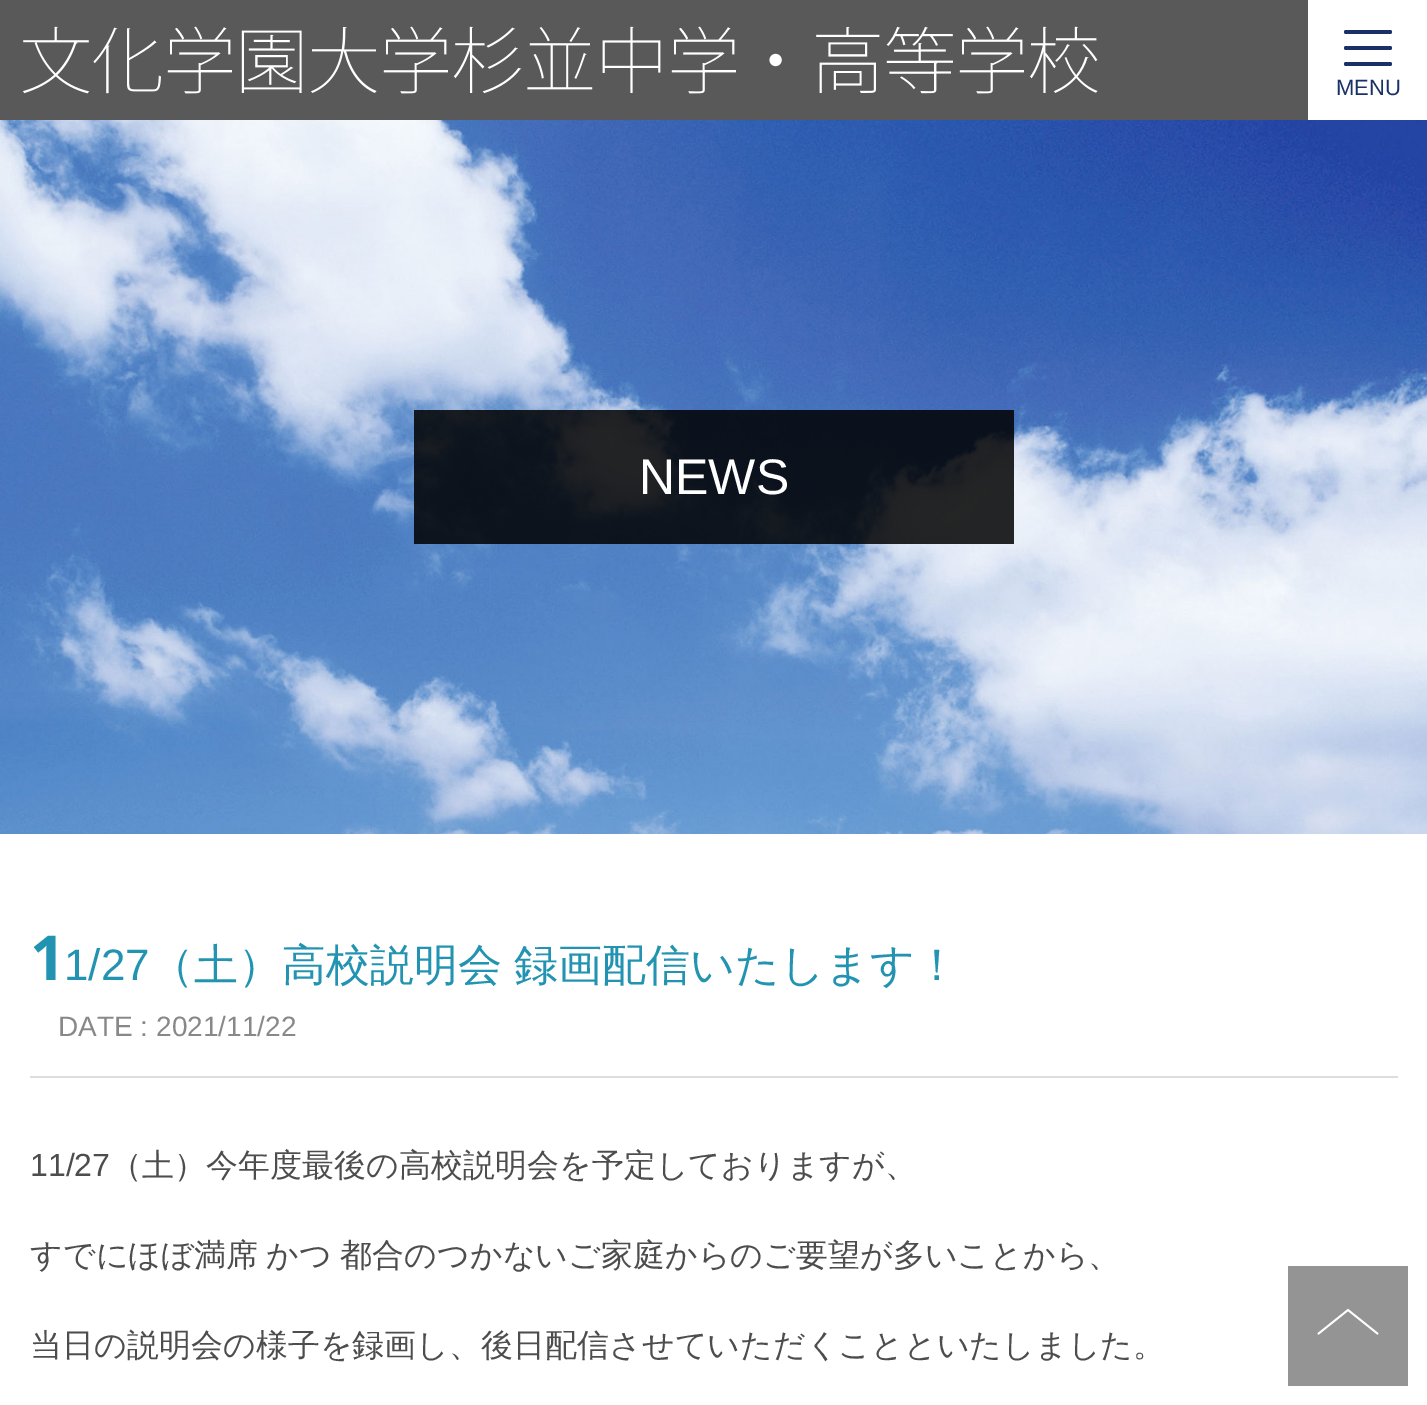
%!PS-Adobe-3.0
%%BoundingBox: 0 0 1427 1405
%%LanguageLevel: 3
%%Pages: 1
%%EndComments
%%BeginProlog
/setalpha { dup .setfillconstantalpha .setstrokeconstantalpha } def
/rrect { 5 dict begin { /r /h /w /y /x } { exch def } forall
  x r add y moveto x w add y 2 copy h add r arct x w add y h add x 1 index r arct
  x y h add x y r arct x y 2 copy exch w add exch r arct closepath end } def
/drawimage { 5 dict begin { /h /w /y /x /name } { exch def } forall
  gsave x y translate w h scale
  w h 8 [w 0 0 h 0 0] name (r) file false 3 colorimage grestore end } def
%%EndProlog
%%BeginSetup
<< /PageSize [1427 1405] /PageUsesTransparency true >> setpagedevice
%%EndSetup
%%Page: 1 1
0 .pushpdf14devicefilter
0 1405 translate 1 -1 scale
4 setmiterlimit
1 setgray
0 0 1427 1405 rectfill
0.349 setgray
0 0 1308 120 rectfill
(images/1.raw) 22 26 1076 68 drawimage
0.102 0.192 0.408 setrgbcolor
1344 30 48 4 2 rrect fill
1344 46 48 4 2 rrect fill
1344 62 48 4 2 rrect fill
(images/2.raw) 0 120 1427 714 drawimage
0.85 setalpha
0 setgray
414 410 600 134 rectfill
1 setalpha
0.867 setgray
30 1076 1368 2 rectfill
(images/3.raw) 1288 1266 120 120 drawimage
/LiberationSans-Regular [22 0 0 -22 0 0] selectfont
0.102 0.192 0.408 setrgbcolor
1336 95 moveto (MENU) show
/LiberationSans-Regular [50 0 0 -50 0 0] selectfont
1 setgray
639 494 moveto (NEWS) show
/NotoSans-Bold [62 0 0 -62 0 0] selectfont
0.133 0.576 0.694 setrgbcolor
30 980 moveto (1) show
/LiberationSans-Regular [44 0 0 -44 0 0] selectfont
64 980 moveto (1/27) show
/WenQuanYiZenHei-Medium [44 0 0 -44 0 0] selectfont
150 980 moveto -1 0 32 (（土）高校説明会 録画配信いたします！) widthshow
/LiberationSans-Regular [28 0 0 -28 0 0] selectfont
0.533 setgray
58 1036 moveto (DATE : 2021/11/22) show
/LiberationSans-Regular [32 0 0 -32 0 0] selectfont
0.302 setgray
30 1176 moveto (11/27) show
/WenQuanYiZenHei-Medium [32 0 0 -32 0 0] selectfont
110 1176 moveto (（土）今年度最後の高校説明会を予定しておりますが、) show
30 1266 moveto -1 0 32 (すでにほぼ満席 かつ 都合のつかないご家庭からのご要望が多いことから、) widthshow
30 1356 moveto (当日の説明会の様子を録画し、後日配信させていただくことといたしました。) show
.poppdf14devicefilter showpage
%%EOF
